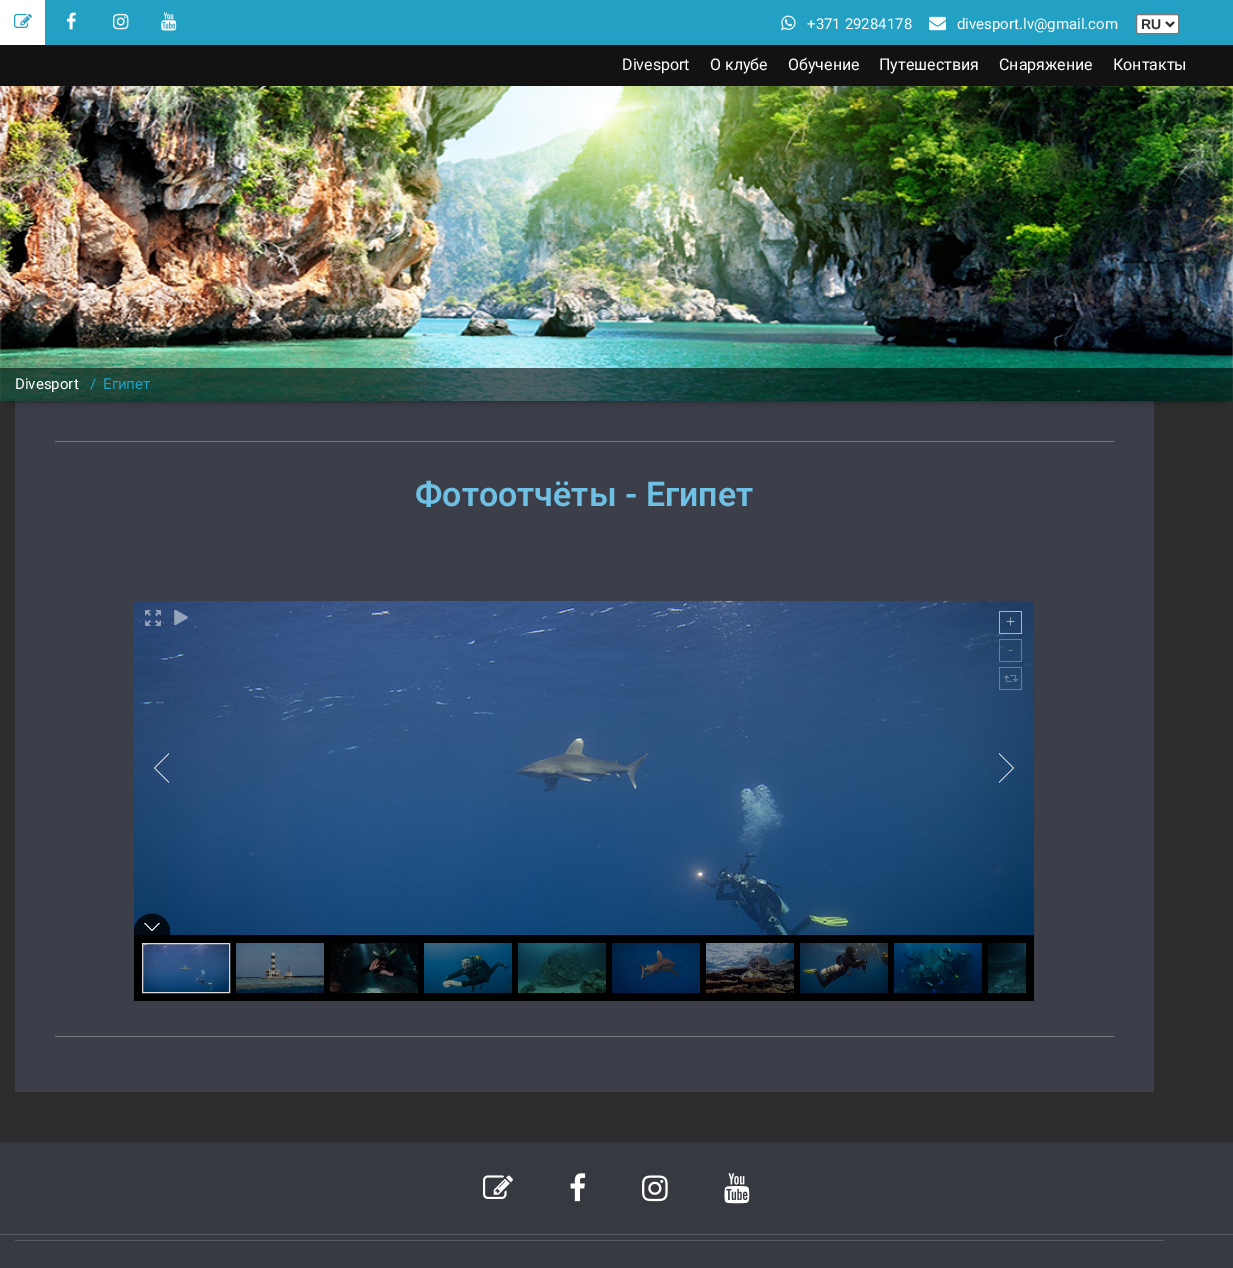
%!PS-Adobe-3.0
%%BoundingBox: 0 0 1233 1268
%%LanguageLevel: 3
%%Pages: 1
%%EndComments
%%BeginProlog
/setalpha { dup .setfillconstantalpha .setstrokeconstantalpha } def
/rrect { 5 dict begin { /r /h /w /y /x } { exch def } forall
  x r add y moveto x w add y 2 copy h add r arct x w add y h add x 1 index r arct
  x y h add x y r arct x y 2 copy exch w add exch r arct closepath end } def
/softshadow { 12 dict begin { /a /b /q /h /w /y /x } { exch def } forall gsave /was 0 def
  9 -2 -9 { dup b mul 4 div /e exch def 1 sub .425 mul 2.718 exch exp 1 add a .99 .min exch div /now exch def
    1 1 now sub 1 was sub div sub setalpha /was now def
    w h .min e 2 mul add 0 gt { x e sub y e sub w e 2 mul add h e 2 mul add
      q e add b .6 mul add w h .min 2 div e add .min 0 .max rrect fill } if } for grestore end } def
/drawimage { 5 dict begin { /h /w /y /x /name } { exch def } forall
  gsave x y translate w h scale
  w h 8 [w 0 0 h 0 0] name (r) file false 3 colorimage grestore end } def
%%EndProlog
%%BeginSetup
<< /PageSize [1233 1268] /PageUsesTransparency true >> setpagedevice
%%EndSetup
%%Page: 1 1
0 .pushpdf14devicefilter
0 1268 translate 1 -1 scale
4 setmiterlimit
0.176 setgray
0 0 1233 1268 rectfill
0.133 0.631 0.769 setrgbcolor
45 0 1188 45 rectfill
1 setgray
0 0 45 45 rectfill
(images/1.raw) 14 13 18 15 drawimage
(images/2.raw) 66 12 10 18 drawimage
(images/3.raw) 113 13 16 17 drawimage
(images/4.raw) 161 12 16 19 drawimage
(images/5.raw) 781 15 15 16 drawimage
(images/6.raw) 929 16 17 15 drawimage
1136.5 14.5 42 19 1.5 rrect gsave fill grestore
0.463 setgray
stroke
0.2 setgray
2 setlinewidth
newpath 1166 22 moveto 1170 26 lineto 1174 22 lineto stroke
0.071 setgray
0 45 1233 41 rectfill
0.235 0.247 0.286 setrgbcolor
15 401 1139 691 rectfill
0 setgray
10 103 1213 295 0 5 1 softshadow
(images/7.raw) 0 86 1233 315 drawimage
0.6 setalpha
0 368 1233 33 rectfill
1 setalpha
0.478 setgray
55 441 1059 1 rectfill
(images/8.raw) 134 601 900 334 drawimage
(images/9.raw) 145 610 16 16 drawimage
(images/10.raw) 174 610 14 15 drawimage
(images/11.raw) 999 611 23 23 drawimage
(images/12.raw) 999 639 23 23 drawimage
(images/13.raw) 999 667 23 23 drawimage
(images/14.raw) 154 753 15 30 drawimage
(images/15.raw) 999 753 15 30 drawimage
0 setgray
134 935 900 66 rectfill
(images/16.raw) 134 913 36 22 drawimage
(images/17.raw) 143 944 86 48 drawimage
0.851 setgray
1 setlinewidth
142.5 943.5 87 49 rectstroke
(images/18.raw) 236 943 88 50 drawimage
(images/19.raw) 330 943 88 50 drawimage
(images/20.raw) 424 943 88 50 drawimage
(images/21.raw) 518 943 88 50 drawimage
(images/22.raw) 612 943 88 50 drawimage
(images/23.raw) 706 943 88 50 drawimage
(images/24.raw) 800 943 88 50 drawimage
(images/25.raw) 894 943 88 50 drawimage
(images/26.raw) 988 943 38 50 drawimage
0.478 setgray
55 1036 1059 1 rectfill
0.216 0.224 0.255 setrgbcolor
0 1142 1233 126 rectfill
0.341 0.349 0.388 setrgbcolor
0 1234 1233 1 rectfill
(images/27.raw) 483 1175 30 24 drawimage
(images/28.raw) 570 1173 16 29 drawimage
(images/29.raw) 642 1175 26 27 drawimage
(images/30.raw) 724 1173 26 31 drawimage
15 1240 1149 1 rectfill
/Roboto-Regular [15 0 0 -15 0 0] selectfont
1 setgray
807 29 moveto (+371 29284178) show
957 29 moveto (divesport.lv@gmail.com) show
/LiberationSans-Bold [14 0 0 -14 0 0] selectfont
0.2 setgray
1141 29 moveto (RU) show
/Roboto-Regular [16 0 0 -16 0 0] selectfont
1 setgray
622 70 moveto (Divesport) show
710 70 moveto (О клубе) show
788 70 moveto (Обучение) show
879 70 moveto (Путешествия) show
999 70 moveto (Снаряжение) show
1113 70 moveto (Контакты) show
/Roboto-Regular [15 0 0 -15 0 0] selectfont
15 389 moveto (Divesport) show
0.133 0.631 0.769 setrgbcolor
90 389 moveto (/) show
103 389 moveto (Египет) show
/Roboto-SemiBold [34 0 0 -34 0 0] selectfont
0.431 0.757 0.894 setrgbcolor
415 506 moveto (Фотоотчёты - Египет) show
.poppdf14devicefilter showpage
%%EOF
